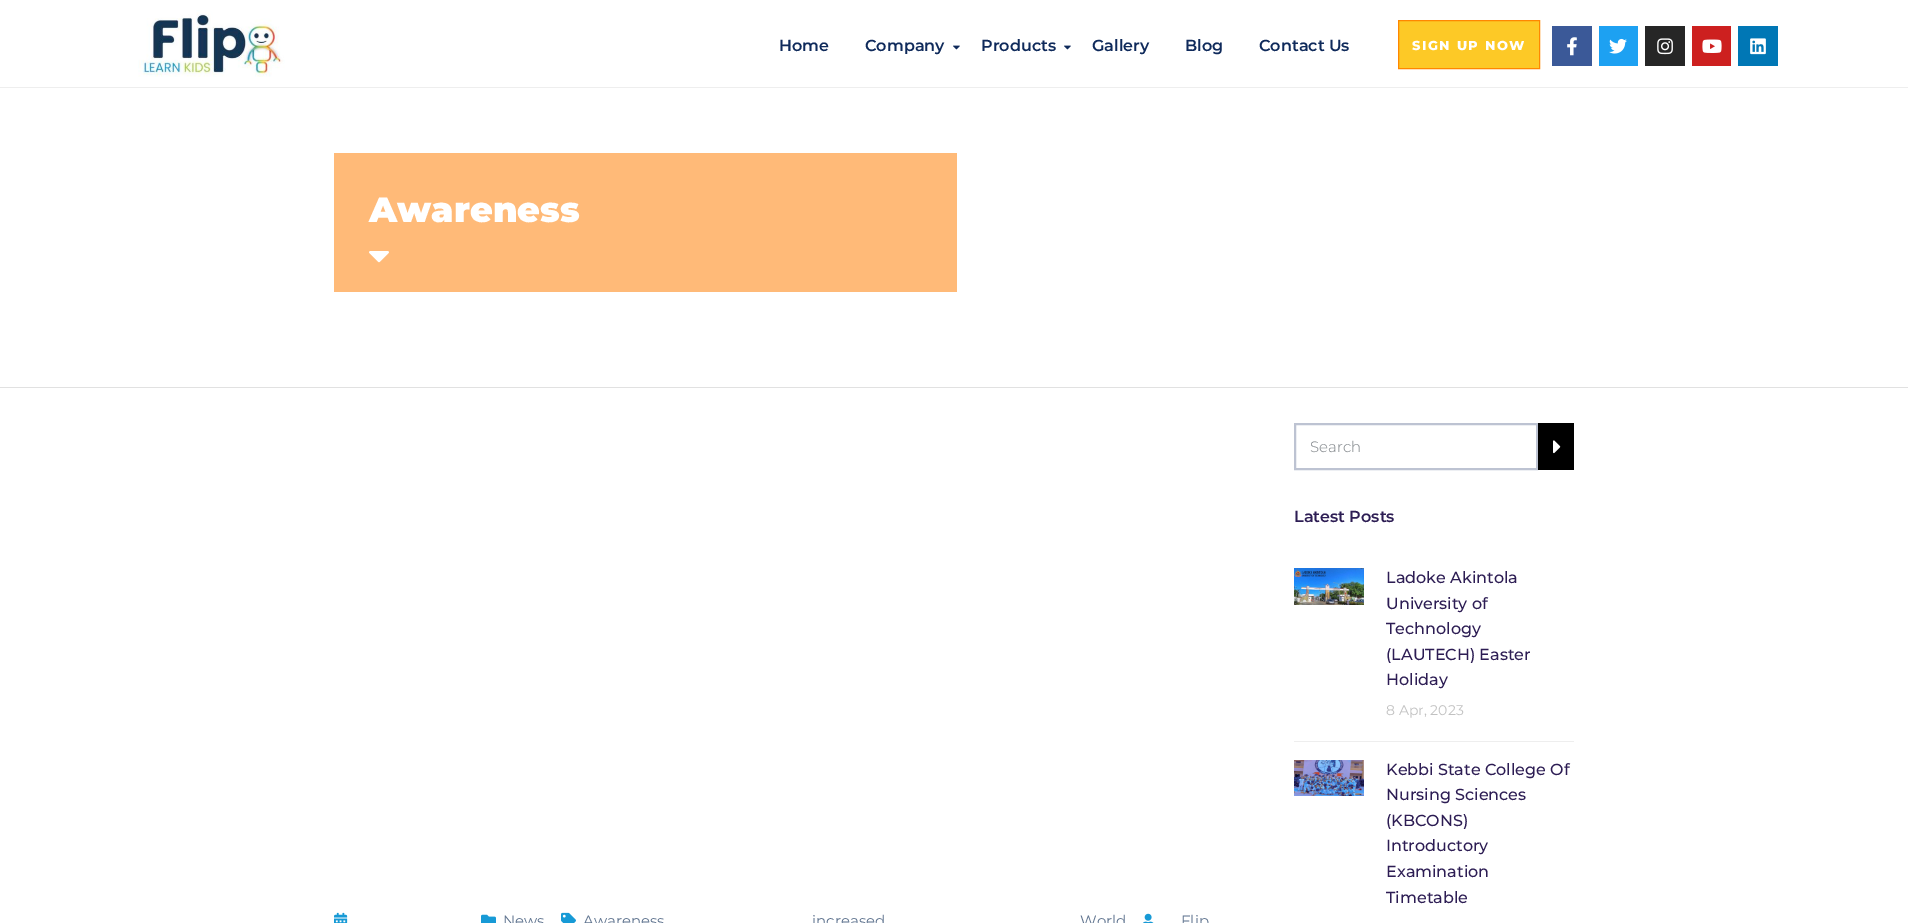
%!PS-Adobe-3.0
%%BoundingBox: 0 0 1908 923
%%LanguageLevel: 3
%%Pages: 1
%%EndComments
%%BeginProlog
/drawimage { 5 dict begin { /h /w /y /x /name } { exch def } forall
  gsave x y translate w h scale
  w h 8 [w 0 0 h 0 0] name (r) file false 3 colorimage grestore end } def
%%EndProlog
%%BeginSetup
<< /PageSize [1908 923] >> setpagedevice
%%EndSetup
%%Page: 1 1
0 923 translate 1 -1 scale
4 setmiterlimit
1 setgray
0 0 1908 923 rectfill
0.933 setgray
0 87 1908 1 rectfill
(images/1.raw) 138 10 147 67 drawimage
(images/2.raw) 953 45 7 5 drawimage
(images/2.raw) 1064 45 7 5 drawimage
0.992 0.788 0.149 setrgbcolor
newpath 1398.5 20.5 moveto 1539.5 20.5 lineto 1539.5 68.5 lineto 1398.5 68.5 lineto closepath gsave fill grestore
1 0.529 0 setrgbcolor
stroke
0.231 0.349 0.596 setrgbcolor
1552 26 40 40 rectfill
(images/3.raw) 1567 37 10 19 drawimage
0.114 0.631 0.949 setrgbcolor
1599 26 39 40 rectfill
(images/4.raw) 1609 38 18 16 drawimage
0.149 setgray
1645 26 40 40 rectfill
(images/5.raw) 1657 38 16 17 drawimage
0.804 0.125 0.122 setrgbcolor
1692 26 39 40 rectfill
(images/6.raw) 1702 39 20 14 drawimage
0 0.467 0.71 setrgbcolor
1738 26 40 40 rectfill
(images/7.raw) 1750 38 16 17 drawimage
0.882 setgray
0 387 1908 1 rectfill
1 0.729 0.471 setrgbcolor
334 153 623 139 rectfill
(images/8.raw) 369 251 20 12 drawimage
0.741 0.765 0.824 setrgbcolor
2 setlinewidth
1295 424 242 45 rectstroke
0 setgray
1538 423 36 47 rectfill
(images/9.raw) 1553 440 8 14 drawimage
0.933 setgray
1294 741 280 1 rectfill
(images/10.raw) 1294 568 70 37 drawimage
(images/11.raw) 1294 760 70 36 drawimage
(images/12.raw) 334 912 14 11 drawimage
(images/13.raw) 481 914 15 9 drawimage
(images/14.raw) 561 912 15 11 drawimage
(images/15.raw) 1143 913 11 10 drawimage
/Montserrat-SemiBold [16 0 0 -16 0 0] selectfont
0.059 0.165 0.357 setrgbcolor
779 51 moveto (Home) show
865 51 moveto (Company) show
981 51 moveto (Products) show
1092 51 moveto (Gallery) show
1185 51 moveto (Blog) show
1259 51 moveto (Contact Us) show
/Montserrat-ExtraBold [13 0 0 -13 0 0] selectfont
1 setgray
1412 50 moveto 1.5 0 (SIGN UP NOW) ashow
/Montserrat-Black [35 0 0 -35 0 0] selectfont
369 222 moveto (Awareness) show
/Montserrat-Light [15 0 0 -15 0 0] selectfont
0.482 0.502 0.522 setrgbcolor
1310 452 moveto (Search) show
/Montserrat-SemiBold [16 0 0 -16 0 0] selectfont
0.176 0.114 0.329 setrgbcolor
1294 522 moveto (Latest Posts) show
/Montserrat-Medium [16 0 0 -16 0 0] selectfont
1386 583 moveto (Ladoke Akintola) show
1386 609 moveto (University of) show
1386 634 moveto (Technology) show
1386 660 moveto (\(LAUTECH\) Easter) show
1386 685 moveto (Holiday) show
/Montserrat-Regular [14 0 0 -14 0 0] selectfont
0.757 setgray
1386 715 moveto (8 Apr, 2023) show
/Montserrat-Medium [16 0 0 -16 0 0] selectfont
0.176 0.114 0.329 setrgbcolor
1386 775 moveto (Kebbi State College Of) show
1386 800 moveto (Nursing Sciences) show
1386 826 moveto (\(KBCONS\)) show
1386 851 moveto (Introductory) show
1386 877 moveto (Examination) show
1386 903 moveto (Timetable) show
/Montserrat-Regular [15 0 0 -15 0 0] selectfont
0.384 0.463 0.569 setrgbcolor
503 926 moveto (News) show
583 926 moveto (Awareness) show
812 926 moveto (increased) show
1080 926 moveto (World) show
1181 926 moveto (Flip) show
showpage
%%EOF
